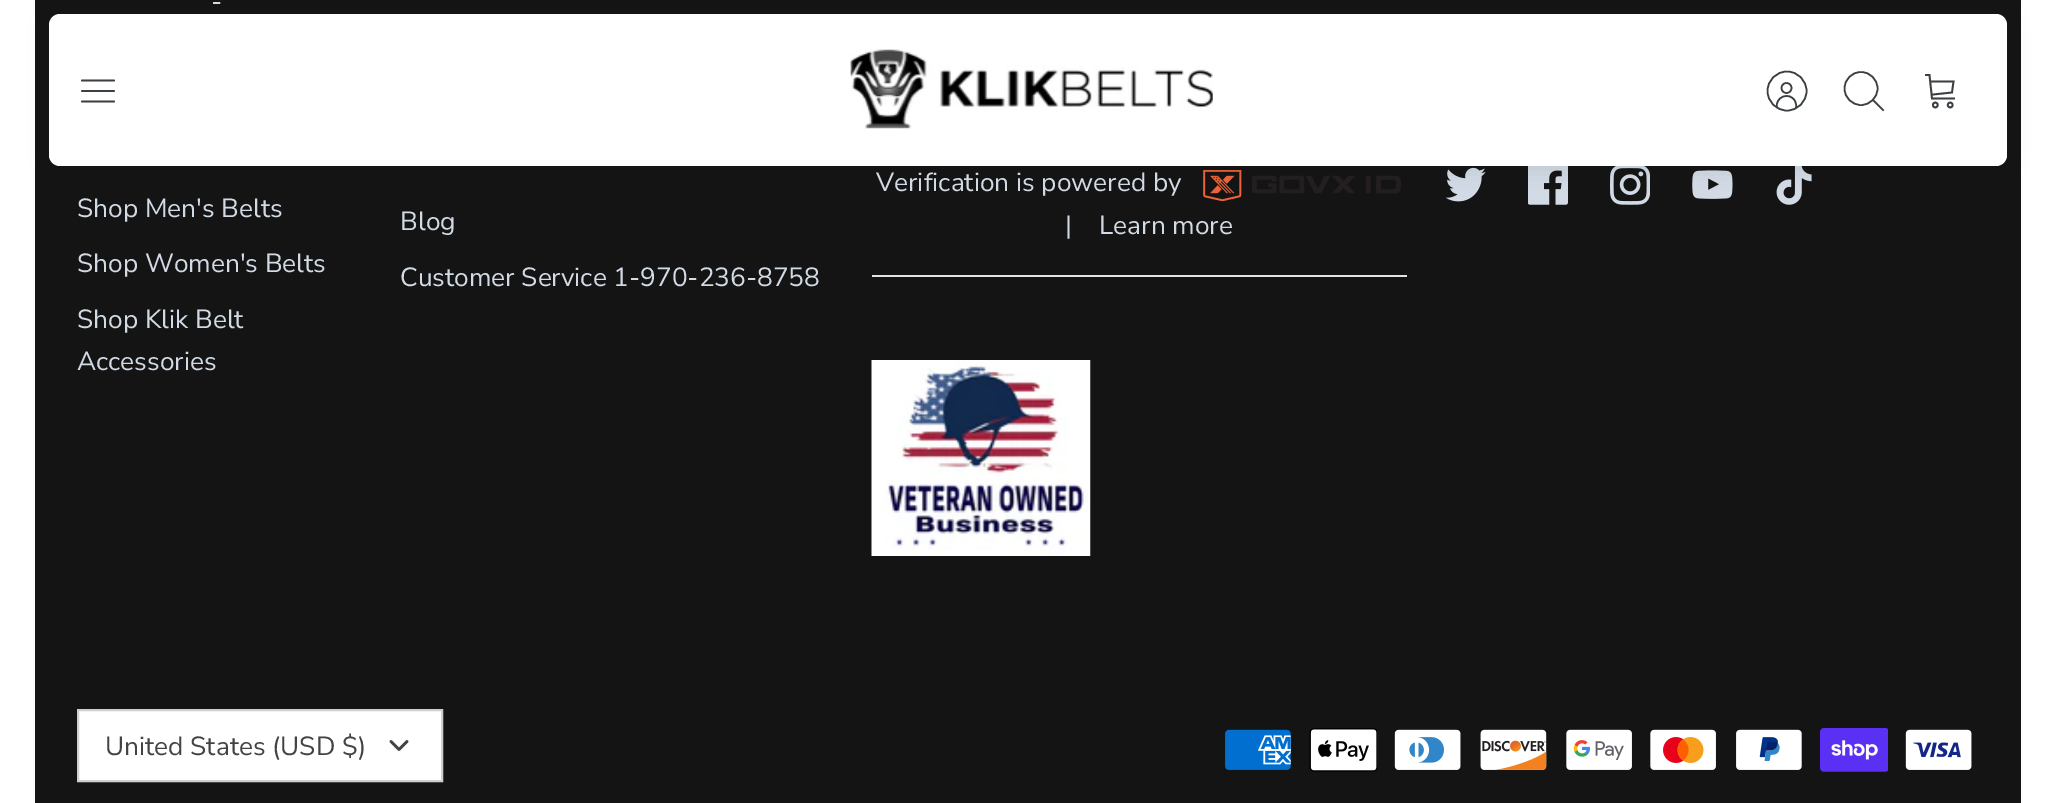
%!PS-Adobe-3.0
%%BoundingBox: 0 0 2055 803
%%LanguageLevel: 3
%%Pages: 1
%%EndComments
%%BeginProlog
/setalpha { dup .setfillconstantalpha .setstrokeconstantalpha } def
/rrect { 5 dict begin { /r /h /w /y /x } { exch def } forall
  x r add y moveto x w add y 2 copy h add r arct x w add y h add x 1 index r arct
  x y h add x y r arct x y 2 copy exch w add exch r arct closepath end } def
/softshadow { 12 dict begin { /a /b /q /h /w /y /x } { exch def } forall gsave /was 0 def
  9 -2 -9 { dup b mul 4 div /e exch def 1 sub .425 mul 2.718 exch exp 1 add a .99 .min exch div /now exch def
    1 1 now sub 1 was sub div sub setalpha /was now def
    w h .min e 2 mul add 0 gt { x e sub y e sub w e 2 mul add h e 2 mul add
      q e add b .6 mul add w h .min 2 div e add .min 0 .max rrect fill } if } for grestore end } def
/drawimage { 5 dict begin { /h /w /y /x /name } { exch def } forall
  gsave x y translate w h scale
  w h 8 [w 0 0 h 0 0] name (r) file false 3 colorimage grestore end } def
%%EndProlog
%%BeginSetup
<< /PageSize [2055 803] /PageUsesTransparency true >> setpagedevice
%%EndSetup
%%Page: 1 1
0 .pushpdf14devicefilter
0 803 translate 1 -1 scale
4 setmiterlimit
1 setgray
0 0 2055 803 rectfill
0.078 setgray
35 0 1986 803 rectfill
(images/2.raw) 1203 170 198 31 drawimage
(images/4.raw) 1446 167 40 35 drawimage
(images/5.raw) 1528 166 40 39 drawimage
(images/6.raw) 1610 166 40 39 drawimage
(images/7.raw) 1692 170 41 29 drawimage
(images/8.raw) 1776 166 36 39 drawimage
0 setgray
51 16 1958 152 11 10.5 0.1 softshadow
1 setgray
49 14 1958 152 11 rrect fill
0.235 0.251 0.263 setrgbcolor
1.8 setlinewidth
1 setlinecap
1 setlinejoin
newpath 82 91 moveto 114 91 lineto 82 80.5 moveto 114 80.5 lineto 82 101.5 moveto 114 101.5 lineto stroke
(images/1.raw) 850 49 363 80 drawimage
1.6 setlinewidth
0 setlinecap
0 setlinejoin
newpath 1796 108 moveto 1796.5 105.5 1796 103 1795 101 curveto 1789.5 91 1774.5 97 1777 108 curveto stroke
newpath 1786.5 88 5 0 360 arc closepath stroke
newpath 1787 91 19.5 0 360 arc closepath stroke
newpath 1861 88.5 16.5 0 360 arc closepath stroke
2 setlinecap
newpath 1873.5 100.5 moveto 1883 110 lineto stroke
1.8 setlinewidth
newpath 1926 75 moveto 1929.5 75 lineto 1932 98.5 lineto 1954 98.5 lineto 1930.5 81.5 moveto 1953.5 81.5 lineto 1952 92.5 lineto 1933 94.5 lineto stroke
0 setlinecap
newpath 1935.3 105 2.4 0 360 arc closepath stroke
newpath 1950.2 105 2.4 0 360 arc closepath stroke
0.89 setgray
872 275 535 2 rectfill
(images/3.raw) 871 360 220 196 drawimage
1 setgray
newpath 78 710 moveto 442 710 lineto 442 781 lineto 78 781 lineto closepath gsave fill grestore
0.816 setgray
2 setlinewidth
stroke
0.263 setgray
2.6 setlinewidth
1 setlinecap
1 setlinejoin
newpath 391 741.5 moveto 399 749.5 lineto 407 741.5 lineto stroke
(images/9.raw) 1225 729 66 41 drawimage
(images/10.raw) 1309 728 68 44 drawimage
(images/11.raw) 1394 729 67 41 drawimage
(images/12.raw) 1480 729 67 41 drawimage
(images/13.raw) 1566 729 66 41 drawimage
(images/14.raw) 1650 729 66 41 drawimage
(images/15.raw) 1736 729 66 41 drawimage
(images/16.raw) 1820 728 68 44 drawimage
(images/17.raw) 1905 729 67 41 drawimage
/NunitoSans-Regular [26.25 0 0 -26.25 0 0] selectfont
0.824 0.859 0.898 setrgbcolor
211 10 moveto (-) show
77 217 moveto (Shop Men's Belts) show
77 272 moveto (Shop Women's Belts) show
77 328 moveto (Shop Klik Belt) show
77 370 moveto (Accessories) show
400 230 moveto (Blog) show
400 286 moveto (Customer Service 1-970-236-8758) show
876 191 moveto (Verification is powered by) show
1065 234 moveto (|) show
1099 234 moveto (Learn more) show
0.263 setgray
105 755 moveto (United States \(USD $\)) show
.poppdf14devicefilter showpage
%%EOF
